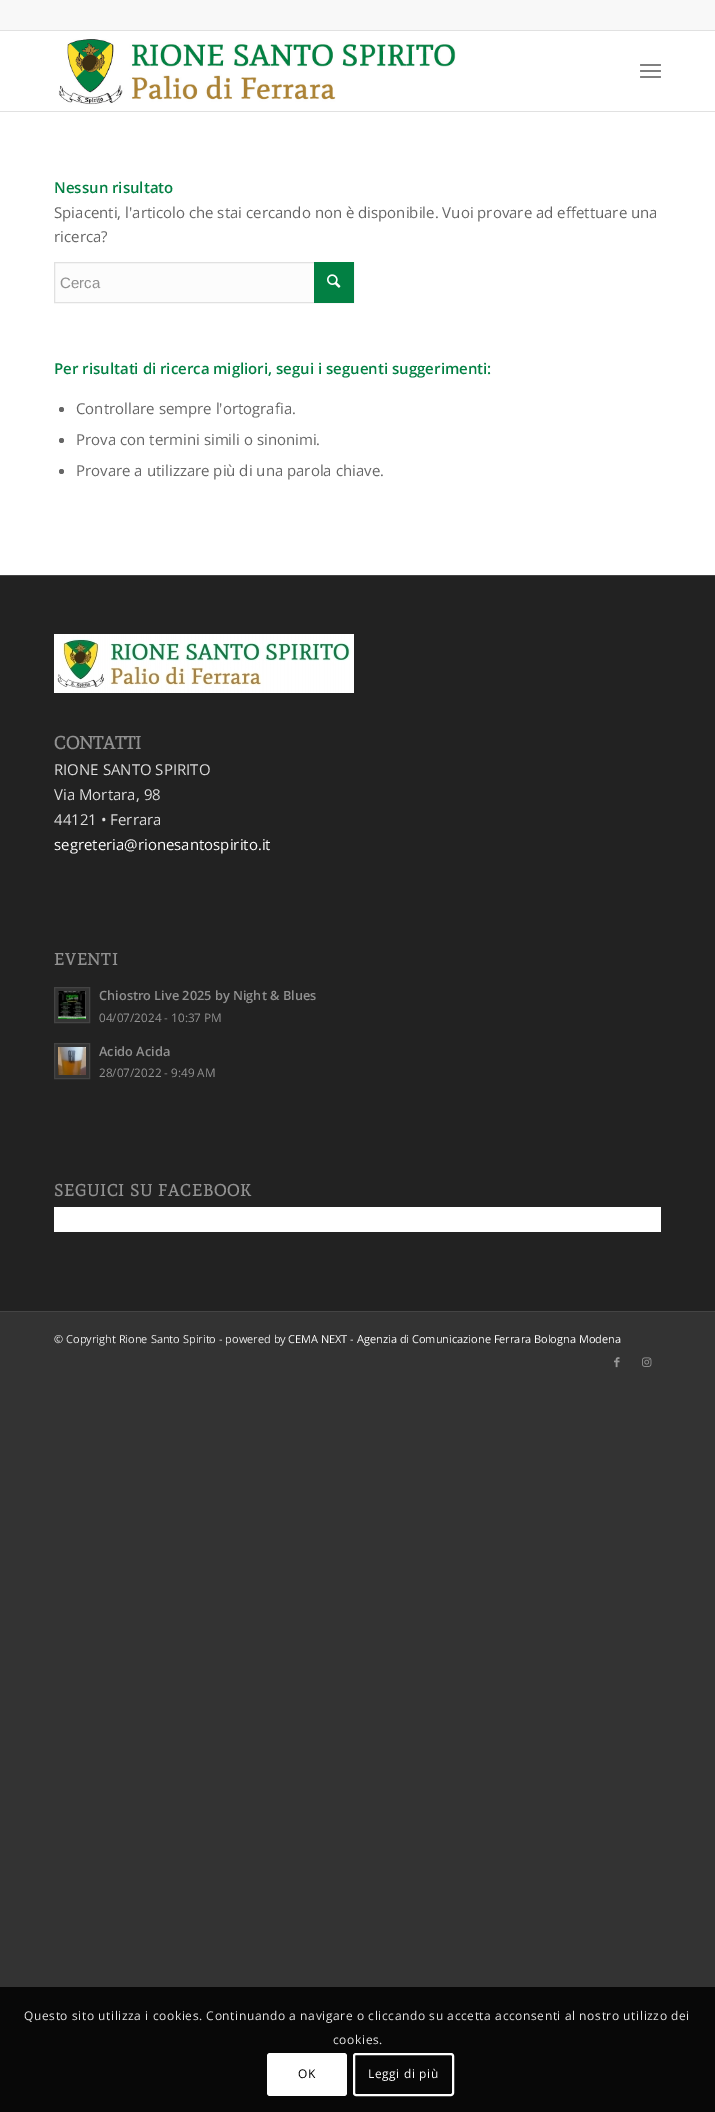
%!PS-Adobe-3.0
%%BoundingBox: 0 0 715 2112
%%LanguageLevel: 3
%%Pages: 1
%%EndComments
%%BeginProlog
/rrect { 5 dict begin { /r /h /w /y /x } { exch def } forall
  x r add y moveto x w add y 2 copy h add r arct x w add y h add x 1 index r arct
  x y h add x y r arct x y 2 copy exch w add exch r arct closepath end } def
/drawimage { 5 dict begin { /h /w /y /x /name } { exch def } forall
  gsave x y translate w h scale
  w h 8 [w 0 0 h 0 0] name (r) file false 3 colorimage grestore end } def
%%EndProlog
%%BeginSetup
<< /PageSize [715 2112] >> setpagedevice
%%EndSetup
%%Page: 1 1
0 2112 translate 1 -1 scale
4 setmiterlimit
0.2 setgray
0 0 715 2112 rectfill
1 setgray
0 31 715 544 rectfill
0.973 setgray
0 0 715 30 rectfill
0.882 setgray
0 30 715 1 rectfill
0 111 715 1 rectfill
(images/1.raw) 58 39 398 66 drawimage
0.502 setgray
640 70 21 2 1 rrect fill
640 64 21 2 1 rrect fill
640 76 21 2 1 rrect fill
0.988 setgray
55 263 259 39 rectfill
0.882 setgray
54.5 262.5 299 40 rectstroke
0.008 0.502 0.263 setrgbcolor
314 262 40 41 rectfill
(images/2.raw) 327 274 14 14 drawimage
0.4 setgray
newpath 61.5 409.5 2.5 0 360 arc closepath fill
newpath 61.5 440.5 2.5 0 360 arc closepath fill
newpath 61.5 471.5 2.5 0 360 arc closepath fill
0.133 setgray
0 576 715 735 rectfill
0.267 setgray
0 575 715 1 rectfill
(images/3.raw) 54 634 300 59 drawimage
0.2 setgray
newpath 54.5 987.5 moveto 89.5 987.5 lineto 89.5 1022.5 lineto 54.5 1022.5 lineto closepath gsave fill grestore
0.267 setgray
stroke
(images/4.raw) 58 991 28 28 drawimage
0.2 setgray
newpath 54.5 1043.5 moveto 89.5 1043.5 lineto 89.5 1078.5 lineto 54.5 1078.5 lineto closepath gsave fill grestore
0.267 setgray
stroke
(images/5.raw) 58 1047 28 28 drawimage
1 setgray
54 1207 607 25 rectfill
0.267 setgray
0 1311 715 1 rectfill
(images/6.raw) 614 1357 6 11 drawimage
(images/7.raw) 642 1357 10 10 drawimage
0.031 setgray
0 1987 715 125 rectfill
1 setgray
267 2053 80 43 3 rrect fill
2 setlinewidth
354 2054 99 41 2 rrect stroke
/OpenSans-SemiBold [15 0 0 -15 0 0] selectfont
0.008 0.502 0.263 setrgbcolor
54 193 moveto (Nessun risultato) show
/OpenSans-Regular [15 0 0 -15 0 0] selectfont
0.4 setgray
54 218 moveto (Spiacenti, l'articolo che stai cercando non è disponibile. Vuoi provare ad effettuare una) show
54 242 moveto (ricerca?) show
/LiberationSans-Regular [15 0 0 -15 0 0] selectfont
0.569 setgray
60 288 moveto (Cerca) show
/OpenSans-SemiBold [15 0 0 -15 0 0] selectfont
0.008 0.502 0.263 setrgbcolor
54 374 moveto (Per risultati di ricerca migliori, segui i seguenti suggerimenti:) show
/OpenSans-Regular [15 0 0 -15 0 0] selectfont
0.4 setgray
76 414 moveto (Controllare sempre l'ortografia.) show
76 445 moveto (Prova con termini simili o sinonimi.) show
76 476 moveto (Provare a utilizzare più di una parola chiave.) show
/MateSC-Bold [18 0 0 -18 0 0] selectfont
0.569 setgray
54 749 moveto (CONTATTI) show
/OpenSans-Regular [15 0 0 -15 0 0] selectfont
0.867 setgray
54 775 moveto (RIONE SANTO SPIRITO) show
54 800 moveto (Via Mortara, 98) show
54 825 moveto (44121 • Ferrara) show
1 setgray
54 850 moveto (segreteria@rionesantospirito.it) show
/MateSC-Bold [16.5 0 0 -16.5 0 0] selectfont
0.569 setgray
54 965 moveto 1 0 (EVENTI) ashow
/OpenSans-SemiBold [12.75 0 0 -12.75 0 0] selectfont
99 1000 moveto (Chiostro Live 2025 by Night & Blues) show
/OpenSans-Regular [11.75 0 0 -11.75 0 0] selectfont
99 1022 moveto (04/07/2024 - 10:37 PM) show
/OpenSans-SemiBold [12.75 0 0 -12.75 0 0] selectfont
99 1056 moveto (Acido Acida) show
/OpenSans-Regular [11.75 0 0 -11.75 0 0] selectfont
99 1077 moveto (28/07/2022 - 9:49 AM) show
/MateSC-Bold [16.5 0 0 -16.5 0 0] selectfont
54 1196 moveto 1 0 (SEGUICI SU FACEBOOK) ashow
/OpenSans-Regular [11 0 0 -11 0 0] selectfont
0.933 setgray
54 1343 moveto (© Copyright Rione Santo Spirito - powered by) show
1 setgray
288 1343 moveto (CEMA NEXT - Agenzia di Comunicazione Ferrara Bologna Modena) show
/OpenSans-Regular [12 0 0 -12 0 0] selectfont
0.902 setgray
24 2020 moveto 0.6 0 (Questo sito utilizza i cookies. Continuando a navigare o cliccando su accetta acconsenti al nostro utilizzo dei) ashow
333 2044 moveto 0.6 0 (cookies.) ashow
0 setgray
298 2078 moveto 0.6 0 (OK) ashow
1 setgray
368 2078 moveto 0.6 0 (Leggi di più) ashow
showpage
%%EOF
